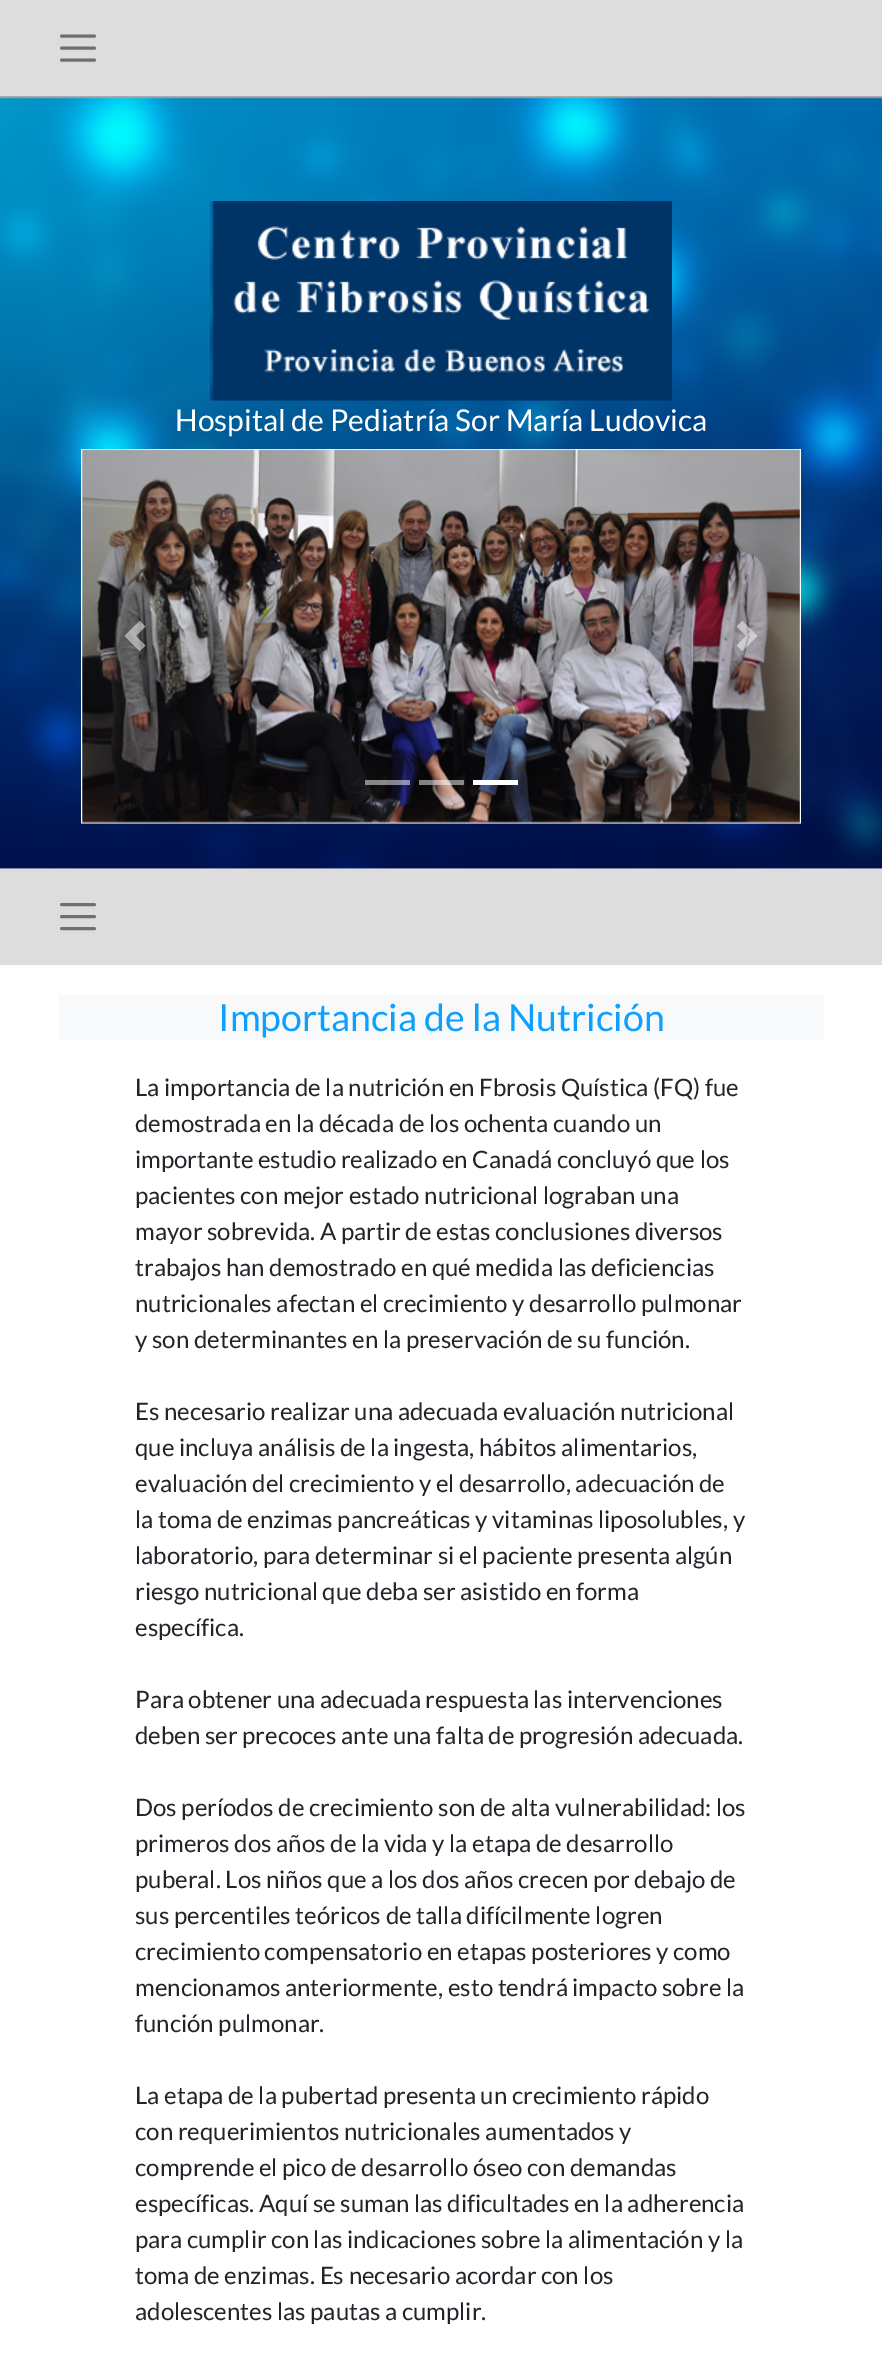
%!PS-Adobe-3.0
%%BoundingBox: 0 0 882 2371
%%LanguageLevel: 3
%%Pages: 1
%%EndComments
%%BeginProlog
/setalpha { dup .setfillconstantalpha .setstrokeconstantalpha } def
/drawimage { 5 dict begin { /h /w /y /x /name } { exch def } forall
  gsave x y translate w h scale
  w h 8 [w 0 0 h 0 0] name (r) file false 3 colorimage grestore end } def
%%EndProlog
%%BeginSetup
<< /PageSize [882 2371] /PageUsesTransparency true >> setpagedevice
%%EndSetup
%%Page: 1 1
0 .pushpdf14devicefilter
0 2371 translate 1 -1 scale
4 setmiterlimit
1 setgray
0 0 882 2371 rectfill
0.867 setgray
0 0 882 96 rectfill
0.435 setgray
3 setlinewidth
1 setlinecap
newpath 61.5 36 moveto 94.5 36 lineto 61.5 48 moveto 94.5 48 lineto 61.5 60 moveto 94.5 60 lineto stroke
(images/1.raw) 0 96 882 773 drawimage
(images/2.raw) 210 201 462 200 drawimage
(images/3.raw) 81 449 720 375 drawimage
0.5 setalpha
1 setgray
newpath 139.5 621 moveto 124.5 636 lineto 139.5 651 lineto 145.5 645.5 lineto 136 636 lineto 145.5 626.5 lineto closepath fill
newpath 742.5 621 moveto 736.5 626.5 lineto 746 636 lineto 736.5 645.5 lineto 742.5 651 lineto 757.5 636 lineto closepath fill
365 780 45 5 rectfill
419 780 45 5 rectfill
1 setalpha
473 780 45 5 rectfill
0.867 setgray
0 869 882 96 rectfill
0.435 setgray
newpath 61.5 904.5 moveto 94.5 904.5 lineto 61.5 916.5 moveto 94.5 916.5 lineto 61.5 928.5 moveto 94.5 928.5 lineto stroke
0.973 0.976 0.98 setrgbcolor
59 995 765 45 rectfill
/Lato-Regular [30 0 0 -30 0 0] selectfont
1 setgray
175 431 moveto (Hospital de Pediatría Sor María Ludovica) show
/Lato-Regular [37.5 0 0 -37.5 0 0] selectfont
0.055 0.627 1 setrgbcolor
218 1031 moveto (Importancia de la Nutrición) show
/Lato-Regular [24 0 0 -24 0 0] selectfont
0.129 0.145 0.161 setrgbcolor
135 1096 moveto (La importancia de la nutrición en Fbrosis Quística \(FQ\) fue) show
135 1132 moveto (demostrada en la década de los ochenta cuando un) show
135 1168 moveto (importante estudio realizado en Canadá concluyó que los) show
135 1204 moveto (pacientes con mejor estado nutricional lograban una) show
135 1240 moveto (mayor sobrevida. A partir de estas conclusiones diversos) show
135 1276 moveto (trabajos han demostrado en qué medida las deficiencias) show
135 1312 moveto (nutricionales afectan el crecimiento y desarrollo pulmonar) show
135 1348 moveto (y son determinantes en la preservación de su función.) show
135 1420 moveto (Es necesario realizar una adecuada evaluación nutricional) show
135 1456 moveto (que incluya análisis de la ingesta, hábitos alimentarios,) show
135 1492 moveto (evaluación del crecimiento y el desarrollo, adecuación de) show
135 1528 moveto (la toma de enzimas pancreáticas y vitaminas liposolubles, y) show
135 1564 moveto (laboratorio, para determinar si el paciente presenta algún) show
135 1600 moveto (riesgo nutricional que deba ser asistido en forma) show
135 1636 moveto (específica.) show
135 1708 moveto (Para obtener una adecuada respuesta las intervenciones) show
135 1744 moveto (deben ser precoces ante una falta de progresión adecuada.) show
135 1816 moveto (Dos períodos de crecimiento son de alta vulnerabilidad: los) show
135 1852 moveto (primeros dos años de la vida y la etapa de desarrollo) show
135 1888 moveto (puberal. Los niños que a los dos años crecen por debajo de) show
135 1924 moveto (sus percentiles teóricos de talla difícilmente logren) show
135 1960 moveto (crecimiento compensatorio en etapas posteriores y como) show
135 1996 moveto (mencionamos anteriormente, esto tendrá impacto sobre la) show
135 2032 moveto (función pulmonar.) show
135 2104 moveto (La etapa de la pubertad presenta un crecimiento rápido) show
135 2140 moveto (con requerimientos nutricionales aumentados y) show
135 2176 moveto (comprende el pico de desarrollo óseo con demandas) show
135 2212 moveto (específicas. Aquí se suman las dificultades en la adherencia) show
135 2248 moveto (para cumplir con las indicaciones sobre la alimentación y la) show
135 2284 moveto (toma de enzimas. Es necesario acordar con los) show
135 2320 moveto (adolescentes las pautas a cumplir.) show
.poppdf14devicefilter showpage
%%EOF
